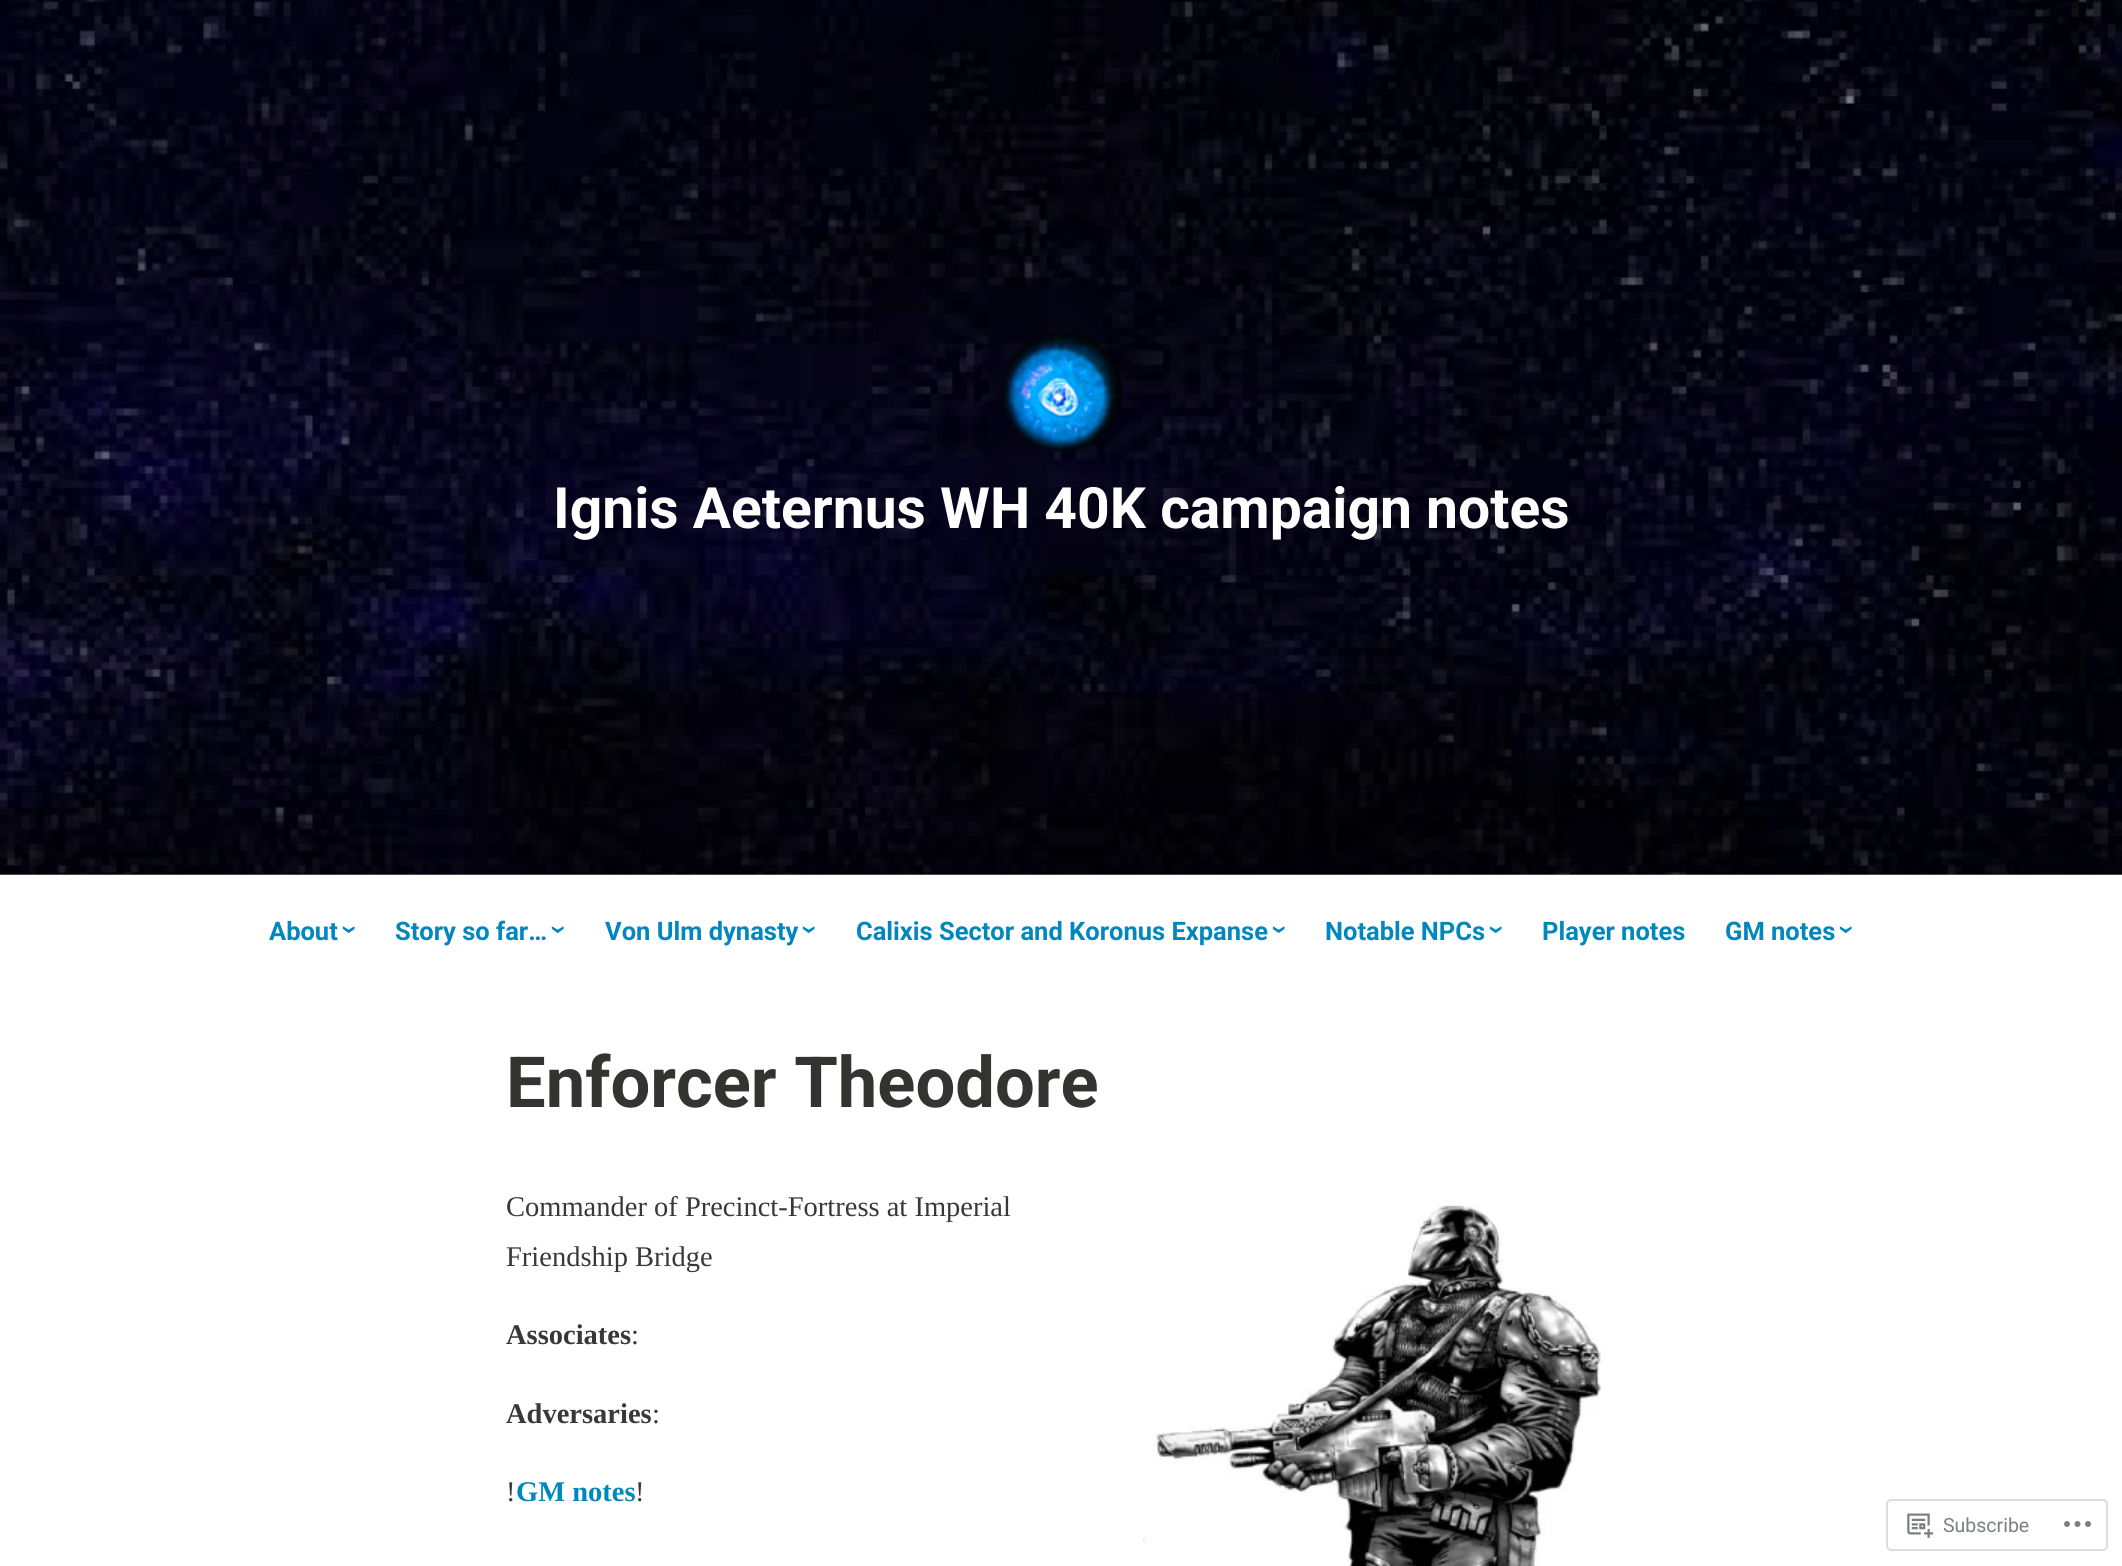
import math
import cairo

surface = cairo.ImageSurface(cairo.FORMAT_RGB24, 2122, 1566)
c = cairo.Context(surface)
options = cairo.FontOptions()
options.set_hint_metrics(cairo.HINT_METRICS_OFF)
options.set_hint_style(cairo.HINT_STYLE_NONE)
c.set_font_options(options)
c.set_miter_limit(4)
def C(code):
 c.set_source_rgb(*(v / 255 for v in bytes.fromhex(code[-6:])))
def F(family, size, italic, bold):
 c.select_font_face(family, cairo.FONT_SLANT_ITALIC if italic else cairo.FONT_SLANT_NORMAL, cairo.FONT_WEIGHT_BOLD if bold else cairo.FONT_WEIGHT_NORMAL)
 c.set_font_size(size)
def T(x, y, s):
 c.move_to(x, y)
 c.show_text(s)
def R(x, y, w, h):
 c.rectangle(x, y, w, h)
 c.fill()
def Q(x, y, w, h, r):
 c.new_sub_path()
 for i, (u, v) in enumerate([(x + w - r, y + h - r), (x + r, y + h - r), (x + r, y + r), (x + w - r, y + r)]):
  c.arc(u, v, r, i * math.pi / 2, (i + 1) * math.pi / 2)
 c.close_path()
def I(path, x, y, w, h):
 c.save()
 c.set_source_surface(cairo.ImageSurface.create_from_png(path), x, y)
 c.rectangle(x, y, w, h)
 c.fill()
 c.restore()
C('ffffff')
c.paint()
I('1.png',0,0,2122,875)
gradient = cairo.LinearGradient(1061,0,1061,875)
gradient.add_color_stop_rgba(.5,0,0,0,.15)
gradient.add_color_stop_rgba(1,0,0,0,.45)
c.set_source(gradient)
R(0,0,2122,875)
I('2.png',1002,332,120,120)
F('Roboto',57,0,1)
C('ffffff')
T(553,528,'Ignis Aeternus WH 40K campaign notes')
F('Roboto',25.5,0,1)
C('0087be')
T(269,940,'About')
F('Roboto',30,0,1)
c.save()
c.translate(341,925)
c.rotate(90 * math.pi / 180)
T(0,0,'›')
c.restore()
F('Roboto',25.5,0,1)
T(395,940,'Story so far…')
F('Roboto',30,0,1)
c.save()
c.translate(550,925)
c.rotate(90 * math.pi / 180)
T(0,0,'›')
c.restore()
F('Roboto',25.5,0,1)
T(605,940,'Von Ulm dynasty')
F('Roboto',30,0,1)
c.save()
c.translate(801,925)
c.rotate(90 * math.pi / 180)
T(0,0,'›')
c.restore()
F('Roboto',25.5,0,1)
T(856,940,'Calixis Sector and Koronus Expanse')
F('Roboto',30,0,1)
c.save()
c.translate(1271,925)
c.rotate(90 * math.pi / 180)
T(0,0,'›')
c.restore()
F('Roboto',25.5,0,1)
T(1325,940,'Notable NPCs')
F('Roboto',30,0,1)
c.save()
c.translate(1488,925)
c.rotate(90 * math.pi / 180)
T(0,0,'›')
c.restore()
F('Roboto',25.5,0,1)
T(1542,940,'Player notes')
T(1725,940,'GM notes')
F('Roboto',30,0,1)
c.save()
c.translate(1838,925)
c.rotate(90 * math.pi / 180)
T(0,0,'›')
c.restore()
F('Roboto',70.5,0,1)
C('333332')
T(506,1107,'Enforcer Theodore')
F('Liberation Serif',28.5,0,0)
C('383838')
T(506,1216,'Commander of Precinct-Fortress at Imperial')
T(506,1266,'Friendship Bridge')
I('3.png',1143,1205,458,361)
F('Liberation Serif',28.5,0,1)
T(506,1344,'Associates')
F('Liberation Serif',28.5,0,0)
T(631,1344,':')
F('Liberation Serif',28.5,0,1)
T(506,1423,'Adversaries')
F('Liberation Serif',28.5,0,0)
T(652,1423,':')
T(506,1501,'!')
F('Liberation Serif',28.5,0,1)
C('0087be')
T(516,1501,'GM notes')
F('Liberation Serif',28.5,0,0)
C('383838')
T(635,1501,'!')
Q(1887,1500,220,50,4)
C('dddddf')
c.stroke()
I('4.png',1907,1513,27,25)
F('Roboto',19.5,0,0)
C('7b7f85')
T(1943,1532,'Subscribe')
I('5.png',2064,1521,27,6)
surface.write_to_png('o.png')
